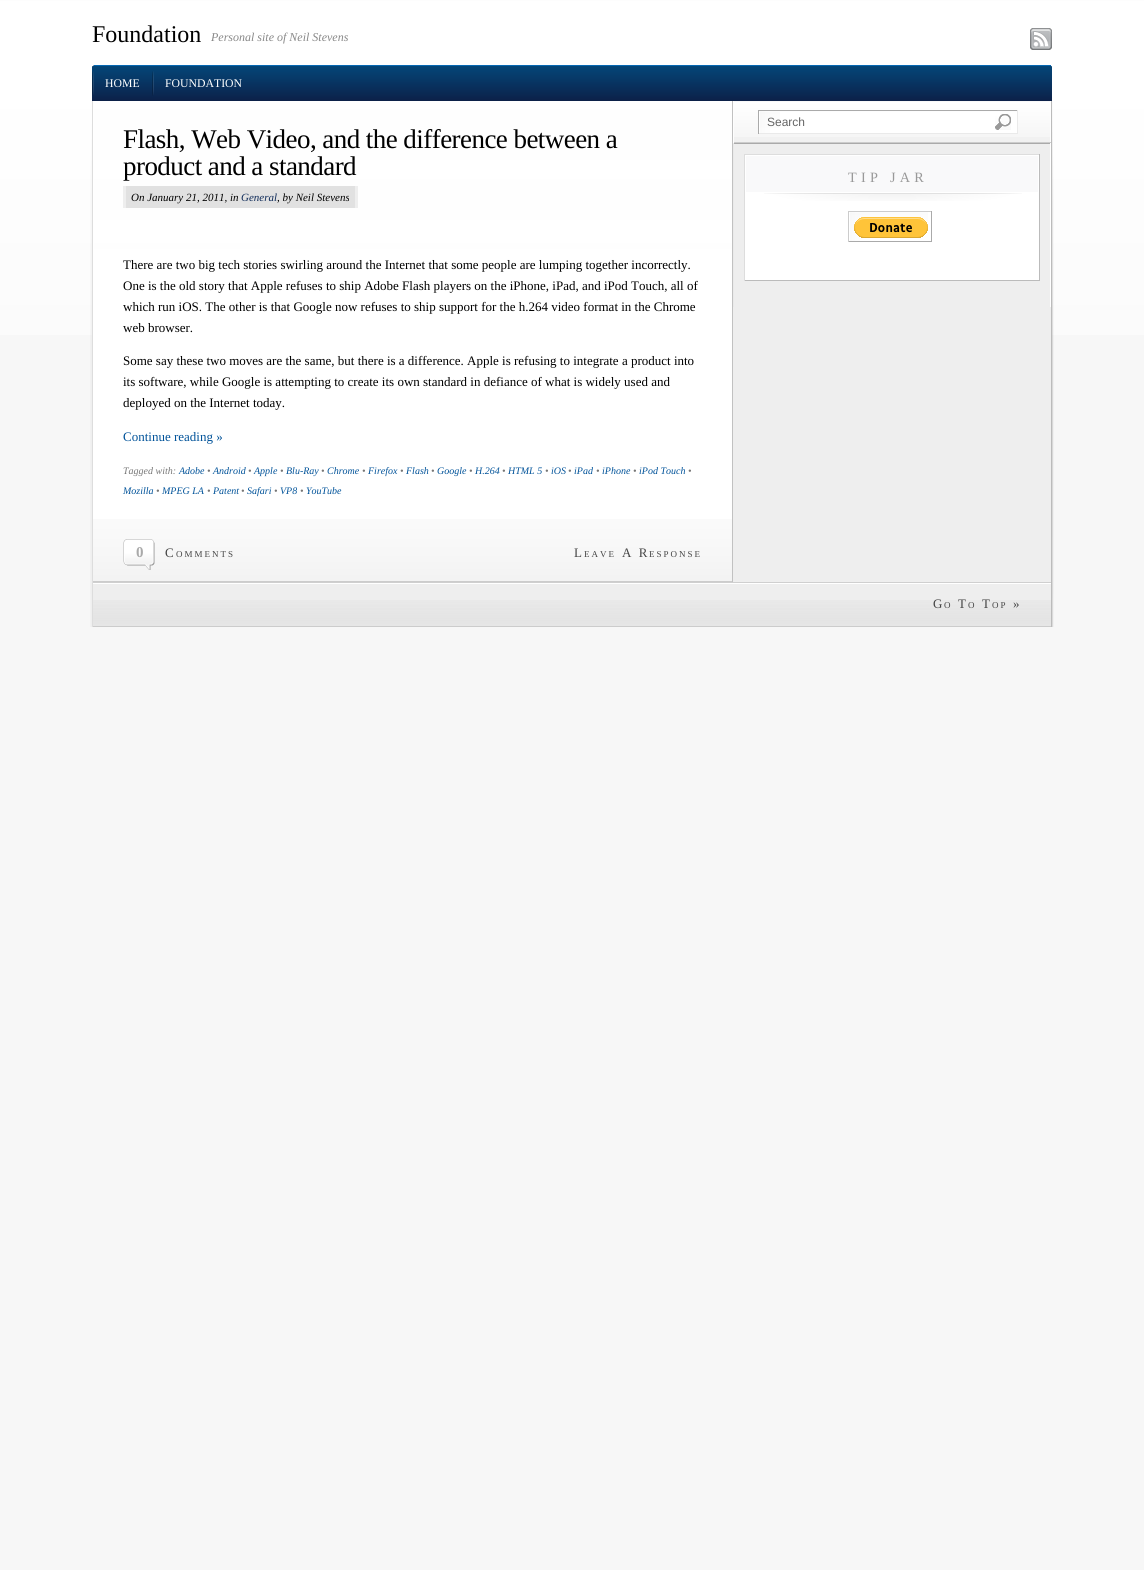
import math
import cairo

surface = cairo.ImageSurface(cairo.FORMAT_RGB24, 1144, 1570)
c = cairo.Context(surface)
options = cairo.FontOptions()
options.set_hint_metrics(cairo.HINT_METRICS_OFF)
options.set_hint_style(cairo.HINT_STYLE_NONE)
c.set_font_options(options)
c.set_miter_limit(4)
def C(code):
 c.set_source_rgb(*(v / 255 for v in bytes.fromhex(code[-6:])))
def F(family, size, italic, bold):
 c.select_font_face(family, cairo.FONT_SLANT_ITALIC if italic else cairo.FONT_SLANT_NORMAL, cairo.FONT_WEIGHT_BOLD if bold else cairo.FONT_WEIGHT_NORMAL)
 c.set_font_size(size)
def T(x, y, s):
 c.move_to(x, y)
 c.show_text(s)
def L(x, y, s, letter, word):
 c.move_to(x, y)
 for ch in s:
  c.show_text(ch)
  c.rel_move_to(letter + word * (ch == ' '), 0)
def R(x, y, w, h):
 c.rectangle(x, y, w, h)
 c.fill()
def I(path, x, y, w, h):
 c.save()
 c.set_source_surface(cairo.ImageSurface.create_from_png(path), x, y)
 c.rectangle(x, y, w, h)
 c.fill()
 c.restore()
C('f7f7f7')
c.paint()
I('1.png',0,0,1144,335)
F('Liberation Serif',24,0,0)
C('000000')
T(92,42,'Foundation')
F('Liberation Serif',12,1,0)
C('888888')
T(211,41,'Personal site of Neil Stevens')
I('2.png',1030,28,22,22)
I('3.png',90,97,964,530)
C('072a5a')
c.new_path()
c.move_to(95,65)
c.line_to(1049,65)
c.curve_to(1050.5,65,1052,66.5,1052,68)
c.line_to(1052,101)
c.line_to(92,101)
c.line_to(92,68)
c.curve_to(92,66.5,93.5,65,95,65)
c.close_path()
c.fill()
I('4.png',92,66,960,35)
C('0668b3')
R(94,65,957,1)
I('5.png',92,71,2,25)
F('Liberation Serif',11.75,0,0)
C('ffffff')
T(105,87,'HOME')
I('5.png',152,71,2,25)
T(165,87,'FOUNDATION')
C('eeeeee')
R(733,144,318,438)
C('bbbbbb')
R(1051,101,1,526)
C('dddddd')
R(92,101,1,526)
C('ffffff')
R(93,101,1,418)
C('c1c1c1')
R(732,101,1,481)
I('6.png',93,519,639,62)
F('Liberation Serif',27,0,0)
C('000000')
L(123,148,'Flash, Web Video, and the difference between a',-.55,0)
L(123,175,'product and a standard',-.55,0)
C('e1e1e1')
R(126,186,229,22)
F('Liberation Serif',11,1,0)
C('000000')
T(131,201,'On January 21, 2011, in')
C('eeeeee')
R(123,186,3,22)
C('0f2b59')
T(241,201,'General')
C('000000')
T(277,201,', by Neil Stevens')
C('eeeeee')
R(355,186,3,22)
F('Liberation Serif',13,0,0)
C('000000')
T(123,269,'There are two big tech stories swirling around the Internet that some people are lumping together incorrectly.')
T(123,290,'One is the old story that Apple refuses to ship Adobe Flash players on the iPhone, iPad, and iPod Touch, all of')
T(123,311,'which run iOS. The other is that Google now refuses to ship support for the h.264 video format in the Chrome')
T(123,332,'web browser.')
T(123,365,'Some say these two moves are the same, but there is a difference. Apple is refusing to integrate a product into')
T(123,386,'its software, while Google is attempting to create its own standard in defiance of what is widely used and')
T(123,407,'deployed on the Internet today.')
C('005299')
T(123,441,'Continue reading »')
F('Liberation Serif',10,1,0)
C('777777')
T(123,474,'Tagged with:')
C('005299')
T(179,474,'Adobe')
C('777777')
T(207,474,'•')
C('005299')
T(213,474,'Android')
C('777777')
T(248,474,'•')
C('005299')
T(254,474,'Apple')
C('777777')
T(280,474,'•')
C('005299')
T(286,474,'Blu-Ray')
C('777777')
T(321,474,'•')
C('005299')
T(327,474,'Chrome')
C('777777')
T(362,474,'•')
C('005299')
T(368,474,'Firefox')
C('777777')
T(400,474,'•')
C('005299')
T(406,474,'Flash')
C('777777')
T(431,474,'•')
C('005299')
T(437,474,'Google')
C('777777')
T(469,474,'•')
C('005299')
T(475,474,'H.264')
C('777777')
T(502,474,'•')
C('005299')
T(508,474,'HTML 5')
C('777777')
T(545,474,'•')
C('005299')
T(551,474,'iOS')
C('777777')
T(568,474,'•')
C('005299')
T(574,474,'iPad')
C('777777')
T(596,474,'•')
C('005299')
T(602,474,'iPhone')
C('777777')
T(633,474,'•')
C('005299')
T(639,474,'iPod Touch')
C('777777')
T(688,474,'•')
C('005299')
T(123,494,'Mozilla')
C('777777')
T(156,494,'•')
C('005299')
T(162,494,'MPEG LA')
C('777777')
T(207,494,'•')
C('005299')
T(213,494,'Patent')
C('777777')
T(241,494,'•')
C('005299')
T(247,494,'Safari')
C('777777')
T(274,494,'•')
C('005299')
T(280,494,'VP8')
C('777777')
T(300,494,'•')
C('005299')
T(306,494,'YouTube')
C('cccccc')
R(93,581,639,1)
I('7.png',123,539,32,31)
F('Liberation Serif',15,0,1)
C('aaaaaa')
T(136,557,'0')
F('Liberation Serif',13,0,0)
C('444444')
L(165,557,'C',2,0)
F('Liberation Serif',9,0,0)
L(176,557,'OMMENTS',2,0)
F('Liberation Serif',13,0,0)
L(574,557,'L',2,0)
F('Liberation Serif',9,0,0)
L(584,557,'EAVE',2,0)
F('Liberation Serif',13,0,0)
L(622,557,'A R',2,0)
F('Liberation Serif',9,0,0)
L(649,557,'ESPONSE',2,0)
C('f1f1f1')
R(734,101,316,41)
I('8.png',734,101,316,36)
C('cccccc')
R(733,142,318,1)
C('ffffff')
R(733,142,1,1)
R(759,112,258,21)
I('9.png',760,111,20,22)
C('aaaaaa')
R(758,110,260,1)
C('eaeaea')
R(1017,110,1,24)
R(758,133,260,1)
C('aaaaaa')
R(758,110,1,24)
F('Liberation Sans',12,0,0)
C('666666')
T(767,126,'Search')
I('10.png',995,114,16,16)
I('11.png',995,114,16,16)
C('aaaaaa')
R(733,143,318,1)
C('ffffff')
R(1050,143,1,164)
C('eaeaea')
R(733,143,1,164)
C('ffffff')
R(746,192,292,87)
C('dddddd')
R(744,154,296,1)
C('bbbbbb')
R(1039,154,1,127)
R(744,280,296,1)
C('dddddd')
R(744,154,1,127)
C('f9f9fa')
R(746,156,292,36)
c.rectangle(745.5,155.5,293,124)
C('ffffff')
c.set_line_width(1)
c.stroke()
I('12.png',764,193,258,8)
F('Liberation Serif',14.25,0,0)
C('999999')
L(848,182,'TIP JAR',4.25,0)
I('13.png',850,212,78,29)
C('cccccc')
R(848,211,84,1)
C('aaaaaa')
R(931,211,1,31)
R(848,241,84,1)
C('cccccc')
R(848,211,1,31)
I('14.png',93,582,958,2)
C('eeeeee')
R(93,584,958,16)
I('15.png',93,600,958,26)
C('cccccc')
R(93,626,958,1)
F('Liberation Serif',13,0,0)
C('444444')
L(933,608,'G',2,0)
F('Liberation Serif',9,0,0)
L(944,608,'O',2,0)
F('Liberation Serif',13,0,0)
L(958,608,'T',2,0)
F('Liberation Serif',9,0,0)
L(968,608,'O',2,0)
F('Liberation Serif',13,0,0)
L(982,608,'T',2,0)
F('Liberation Serif',9,0,0)
L(992,608,'OP',2,0)
F('Liberation Serif',13,0,0)
L(1013,608,'»',2,0)
surface.write_to_png('o.png')
